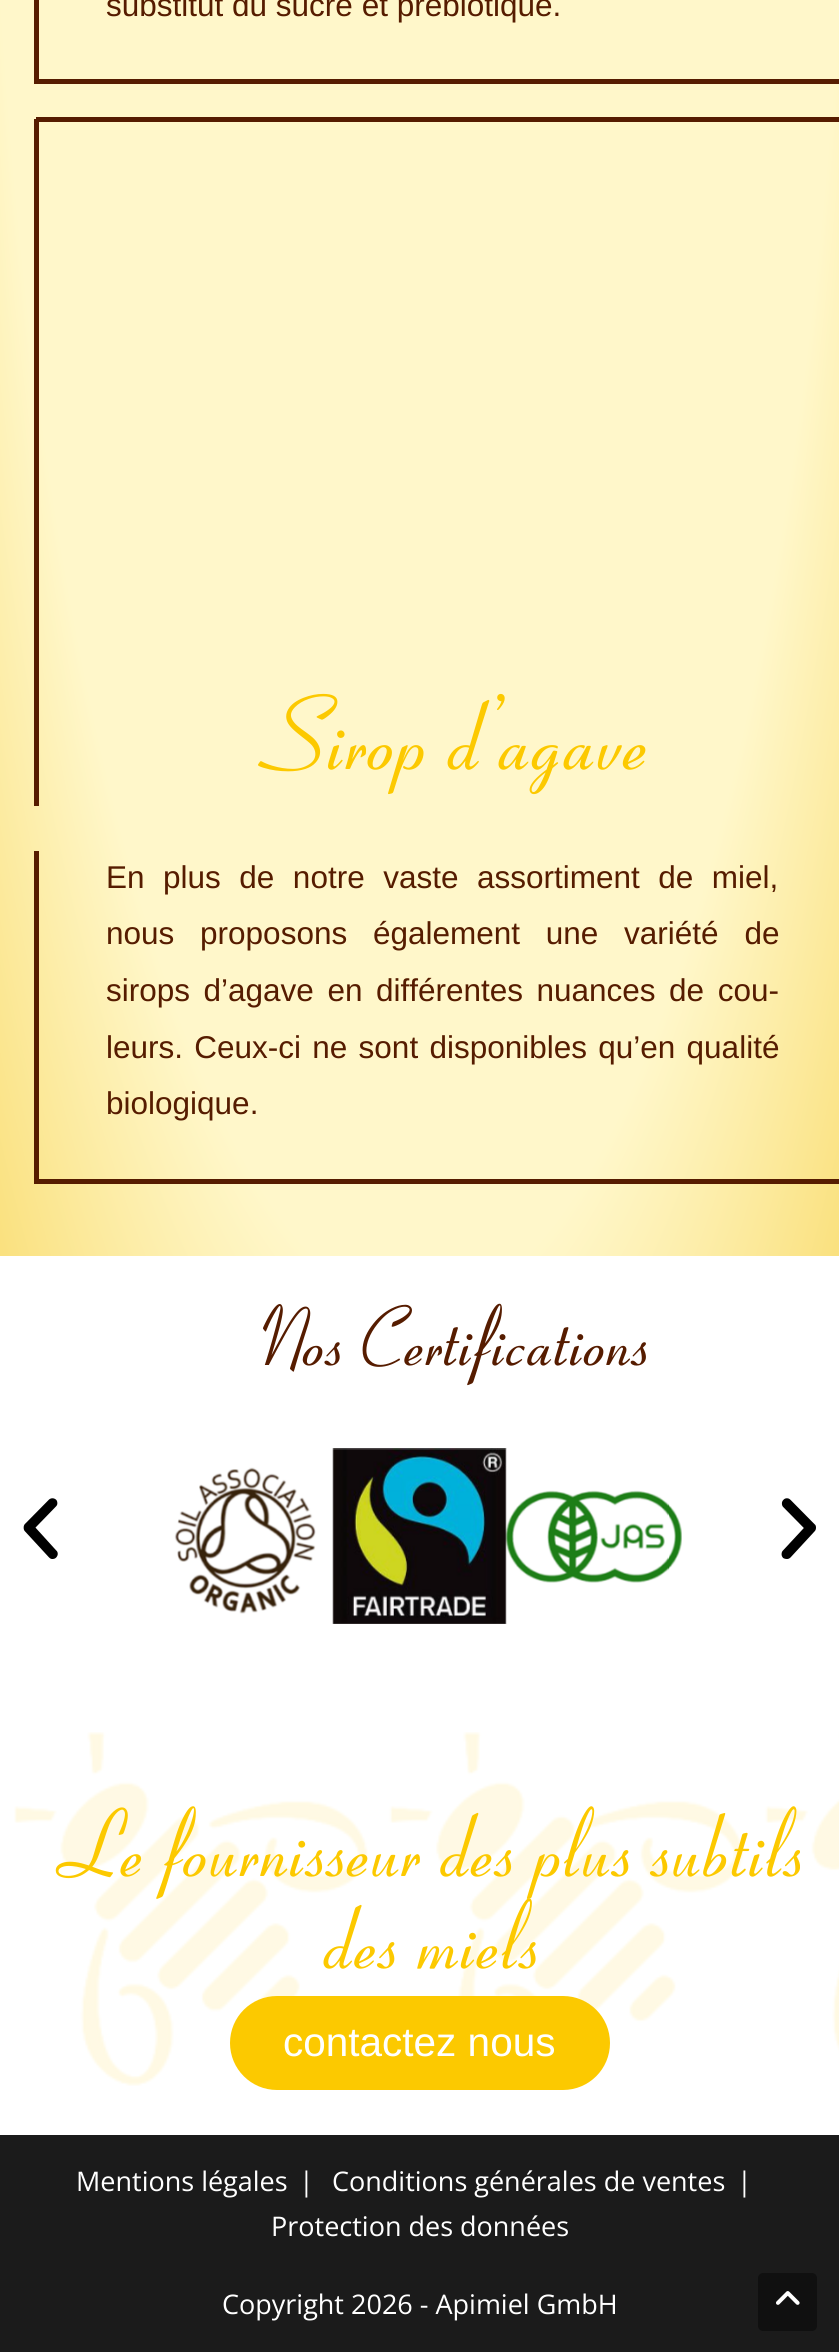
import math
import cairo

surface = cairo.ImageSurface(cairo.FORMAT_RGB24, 839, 2352)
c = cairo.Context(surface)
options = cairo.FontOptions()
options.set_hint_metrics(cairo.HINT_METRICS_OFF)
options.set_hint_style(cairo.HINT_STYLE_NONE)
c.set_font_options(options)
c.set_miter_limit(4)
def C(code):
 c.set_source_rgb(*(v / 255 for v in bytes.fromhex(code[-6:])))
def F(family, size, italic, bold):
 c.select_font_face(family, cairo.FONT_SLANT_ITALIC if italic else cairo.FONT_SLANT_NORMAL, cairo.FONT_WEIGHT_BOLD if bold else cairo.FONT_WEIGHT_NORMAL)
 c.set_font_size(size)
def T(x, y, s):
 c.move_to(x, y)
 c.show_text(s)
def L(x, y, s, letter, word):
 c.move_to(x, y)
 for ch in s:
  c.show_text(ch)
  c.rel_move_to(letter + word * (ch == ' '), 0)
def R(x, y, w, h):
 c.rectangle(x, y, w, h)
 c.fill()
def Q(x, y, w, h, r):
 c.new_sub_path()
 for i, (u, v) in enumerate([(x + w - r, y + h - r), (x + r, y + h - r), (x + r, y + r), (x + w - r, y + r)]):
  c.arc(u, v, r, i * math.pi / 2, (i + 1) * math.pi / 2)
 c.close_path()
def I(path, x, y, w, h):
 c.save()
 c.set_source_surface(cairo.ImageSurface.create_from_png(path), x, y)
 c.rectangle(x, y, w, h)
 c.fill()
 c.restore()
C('ffffff')
c.paint()
gradient = cairo.RadialGradient(0,0,0,0,0,1)
gradient.set_matrix(cairo.Matrix(1 / 593, 0, 0, 1 / 2348, -1 * 420 / 593, -1 * -405 / 2348))
gradient.add_color_stop_rgba(.73,1,0.969,0.792,1)
gradient.add_color_stop_rgba(1,0.98,0.882,0.498,1)
c.set_source(gradient)
R(0,0,839,1256)
C('561c00')
R(34,79,805,5)
R(34,0,5,83)
F('Liberation Sans',31.5,0,0)
T(106,16,'substitut du sucre et prébiotique.')
R(36,117,803,5)
R(34,119,5,687)
F('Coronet',101,0,0)
C('fcc900')
T(247,769,'Sirop d’agave')
C('561c00')
R(34,1179,805,5)
R(34,851,5,333)
F('Liberation Sans',31.5,0,0)
L(106,888,'En plus de notre vaste assortiment de miel,',0,9.75)
L(106,944,'nous proposons également une variété de',0,17)
L(106,1001,'sirops d’agave en différentes nuances de cou-',0,4.75)
L(106,1058,'leurs. Ceux-ci ne sont disponibles qu’en qualité',0,2.5)
T(106,1114,'biologique.')
F('Coronet',81,0,0)
T(245,1365,'Nos Certifications')
I('1.png',23,1498,35,61)
I('2.png',174,1467,142,147)
I('3.png',332,1448,175,176)
I('4.png',505,1448,177,176)
I('5.png',781,1498,35,61)
I('6.png',14,1732,825,354)
F('Coronet',92.25,0,0)
C('fcc900')
T(46,1876,'Le fournisseur des plus subtils')
T(312,1968,'des miels')
Q(230,1996,380,94,47)
c.fill()
F('Liberation Sans',40.5,0,0)
C('ffffff')
T(283,2056,'contactez nous')
C('1b1b1b')
R(0,2135,839,217)
F('Open Sans',27,0,0)
C('ffffff')
T(76,2191,'Mentions légales')
T(299,2191,'|')
T(332,2191,'Conditions générales de ventes')
T(737,2191,'|')
T(271,2236,'Protection des données')
T(222,2314,'Copyright 2026 - Apimiel GmbH')
C('101010')
Q(758,2273,59,58,5)
c.fill()
I('7.png',776,2291,24,14)
surface.write_to_png('o.png')
